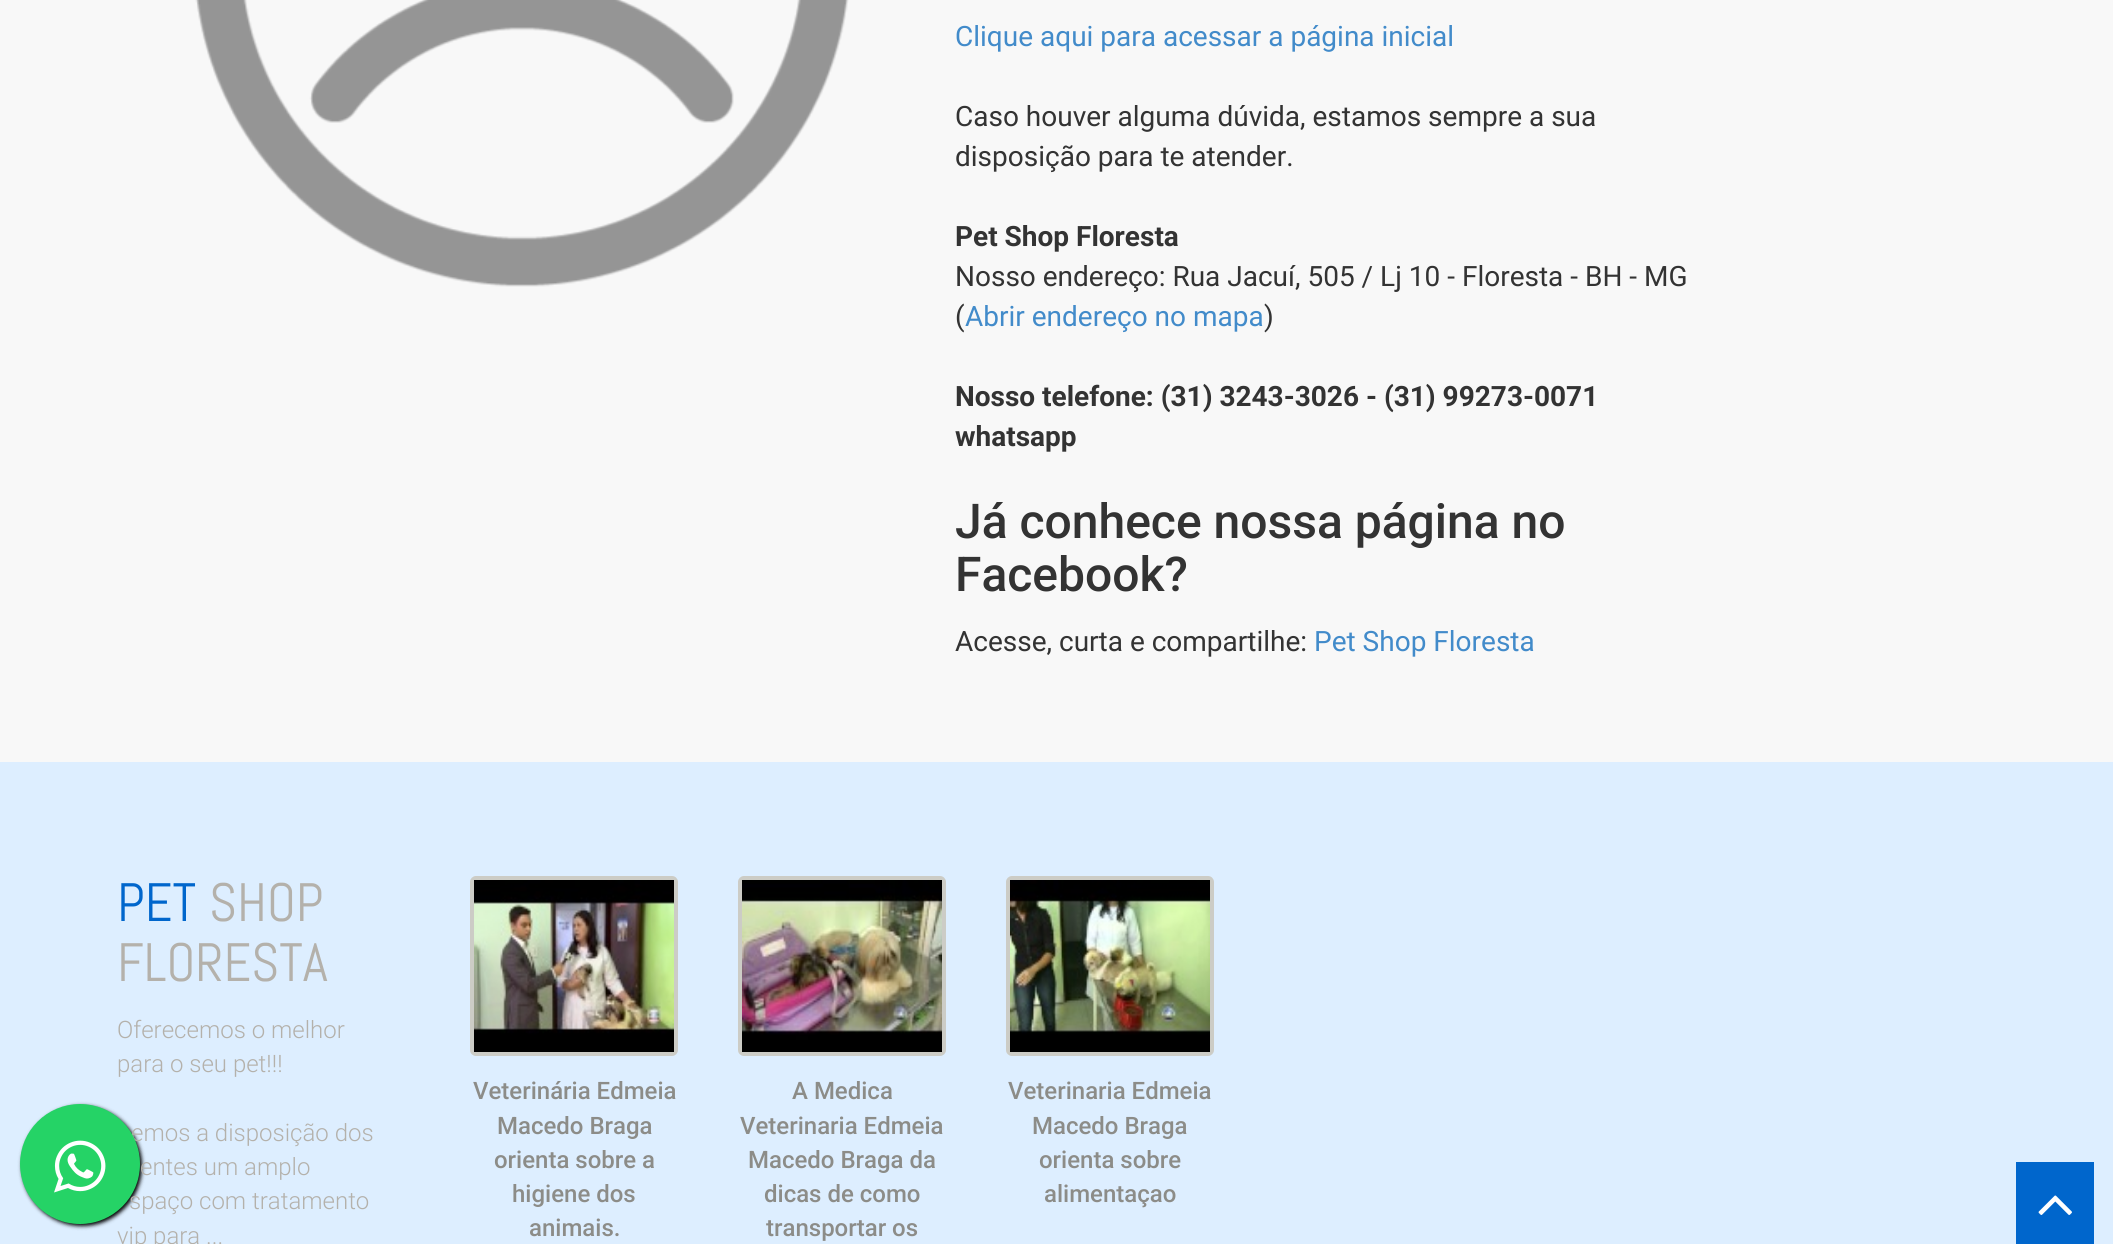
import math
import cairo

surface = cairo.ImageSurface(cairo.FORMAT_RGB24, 2113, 1244)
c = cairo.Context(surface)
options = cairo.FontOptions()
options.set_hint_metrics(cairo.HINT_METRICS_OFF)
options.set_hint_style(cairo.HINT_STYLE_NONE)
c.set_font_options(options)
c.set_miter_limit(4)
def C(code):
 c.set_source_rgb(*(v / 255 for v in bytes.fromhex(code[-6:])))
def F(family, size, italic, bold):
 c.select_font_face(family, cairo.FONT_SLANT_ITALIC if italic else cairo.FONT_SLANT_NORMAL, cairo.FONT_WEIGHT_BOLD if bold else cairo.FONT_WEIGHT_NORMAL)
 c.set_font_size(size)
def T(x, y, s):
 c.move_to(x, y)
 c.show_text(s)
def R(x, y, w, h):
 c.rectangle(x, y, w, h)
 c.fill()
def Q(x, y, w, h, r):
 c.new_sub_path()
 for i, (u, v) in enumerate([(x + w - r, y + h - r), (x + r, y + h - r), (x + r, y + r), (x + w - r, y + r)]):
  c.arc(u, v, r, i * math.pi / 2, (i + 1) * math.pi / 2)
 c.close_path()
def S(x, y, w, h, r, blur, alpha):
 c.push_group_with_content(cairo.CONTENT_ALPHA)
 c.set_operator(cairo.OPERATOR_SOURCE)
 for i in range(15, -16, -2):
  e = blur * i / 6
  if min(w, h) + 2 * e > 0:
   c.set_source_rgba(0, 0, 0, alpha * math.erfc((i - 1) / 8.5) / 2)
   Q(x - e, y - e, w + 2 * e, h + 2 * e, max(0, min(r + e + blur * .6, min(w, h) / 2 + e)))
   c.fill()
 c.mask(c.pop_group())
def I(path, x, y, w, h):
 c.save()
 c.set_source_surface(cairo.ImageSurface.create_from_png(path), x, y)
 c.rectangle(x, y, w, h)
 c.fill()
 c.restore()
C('f8f8f8')
c.paint()
I('1.png',195,0,654,287)
F('Roboto',28,0,0)
C('428bca')
T(955,46,'Clique aqui para acessar a página inicial')
C('333333')
T(955,126,'Caso houver alguma dúvida, estamos sempre a sua')
T(955,166,'disposição para te atender.')
F('Roboto',28,0,1)
T(955,246,'Pet Shop Floresta')
F('Roboto',28,0,0)
T(955,286,'Nosso endereço: Rua Jacuí, 505 / Lj 10 - Floresta - BH - MG')
T(955,326,'(')
C('428bca')
T(965,326,'Abrir endereço no mapa')
C('333333')
T(1264,326,')')
F('Roboto',28,0,1)
T(955,406,'Nosso telefone: (31) 3243-3026 - (31) 99273-0071')
T(955,446,'whatsapp')
F('Roboto Medium',48,0,0)
T(955,538,'Já conhece nossa página no')
T(955,591,'Facebook?')
F('Roboto',28,0,0)
T(955,651,'Acesse, curta e compartilhe:')
C('428bca')
T(1314,651,'Pet Shop Floresta')
C('ddeeff')
R(0,762,2113,482)
C('000000')
S(22,1106,120,120,60,2,1)
F('Roboto Light',24,0,0)
C('b4b1ab')
T(131,1141,'emos a disposição dos')
T(129,1209,'spaço com tratamento')
C('25d366')
c.new_path()
c.arc(80,1164,60,0,2 * math.pi)
c.fill()
I('2.png',54,1140,52,53)
F('Abel',54,0,0)
C('0066cc')
T(117,921,'PET')
C('b4b1ab')
T(209,921,'SHOP')
T(117,981,'FLORESTA')
F('Roboto Light',24,0,0)
T(117,1038,'Oferecemos o melhor')
T(117,1072,'para o seu pet!!!')
T(140,1175,'entes um amplo')
T(117,1244,'vip para ...')
Q(472,878,204,176,4)
C('ccccc6')
c.set_line_width(4)
c.stroke()
I('3.png',474,880,200,172)
F('Roboto Medium',24,0,0)
C('8c8c88')
T(473,1099,'Veterinária Edmeia')
T(497,1134,'Macedo Braga')
T(494,1168,'orienta sobre a')
T(512,1202,'higiene dos')
T(529,1236,'animais.')
Q(740,878,204,176,4)
C('ccccc6')
c.stroke()
I('4.png',742,880,200,172)
C('8c8c88')
T(792,1099,'A Medica')
T(740,1134,'Veterinaria Edmeia')
T(748,1168,'Macedo Braga da')
T(764,1202,'dicas de como')
T(766,1236,'transportar os')
Q(1008,878,204,176,4)
C('ccccc6')
c.stroke()
I('5.png',1010,880,200,172)
C('8c8c88')
T(1008,1099,'Veterinaria Edmeia')
T(1032,1134,'Macedo Braga')
T(1039,1168,'orienta sobre')
T(1044,1202,'alimentaçao')
C('0066cc')
R(2016,1162,78,82)
I('6.png',2038,1195,34,20)
surface.write_to_png('o.png')
